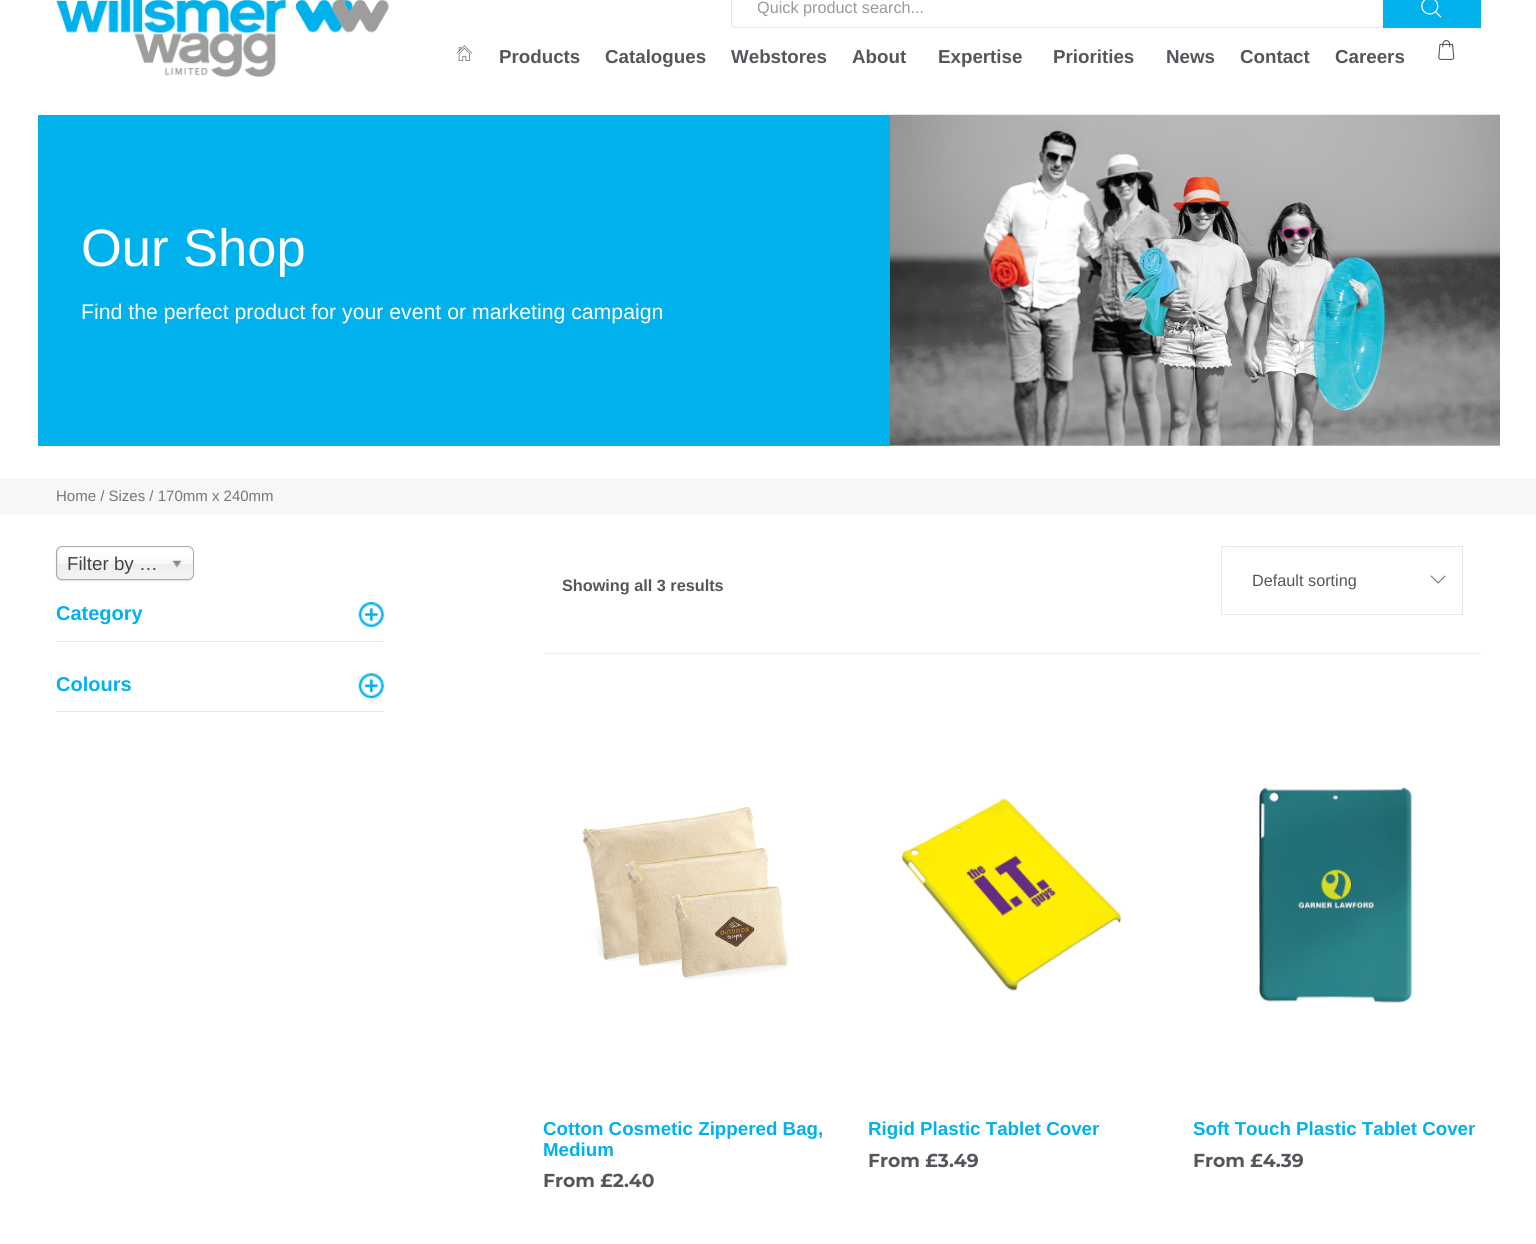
import math
import cairo

surface = cairo.ImageSurface(cairo.FORMAT_RGB24, 1536, 1244)
c = cairo.Context(surface)
options = cairo.FontOptions()
options.set_hint_metrics(cairo.HINT_METRICS_OFF)
options.set_hint_style(cairo.HINT_STYLE_NONE)
c.set_font_options(options)
c.set_miter_limit(4)
def C(code):
 c.set_source_rgb(*(v / 255 for v in bytes.fromhex(code[-6:])))
def F(family, size, italic, bold):
 c.select_font_face(family, cairo.FONT_SLANT_ITALIC if italic else cairo.FONT_SLANT_NORMAL, cairo.FONT_WEIGHT_BOLD if bold else cairo.FONT_WEIGHT_NORMAL)
 c.set_font_size(size)
def T(x, y, s):
 c.move_to(x, y)
 c.show_text(s)
def R(x, y, w, h):
 c.rectangle(x, y, w, h)
 c.fill()
def Q(x, y, w, h, r):
 c.new_sub_path()
 for i, (u, v) in enumerate([(x + w - r, y + h - r), (x + r, y + h - r), (x + r, y + r), (x + w - r, y + r)]):
  c.arc(u, v, r, i * math.pi / 2, (i + 1) * math.pi / 2)
 c.close_path()
def S(x, y, w, h, r, blur, alpha):
 c.push_group_with_content(cairo.CONTENT_ALPHA)
 c.set_operator(cairo.OPERATOR_SOURCE)
 for i in range(15, -16, -2):
  e = blur * i / 6
  if min(w, h) + 2 * e > 0:
   c.set_source_rgba(0, 0, 0, alpha * math.erfc((i - 1) / 8.5) / 2)
   Q(x - e, y - e, w + 2 * e, h + 2 * e, max(0, min(r + e + blur * .6, min(w, h) / 2 + e)))
   c.fill()
 c.mask(c.pop_group())
def I(path, x, y, w, h):
 c.save()
 c.set_source_surface(cairo.ImageSurface.create_from_png(path), x, y)
 c.rectangle(x, y, w, h)
 c.fill()
 c.restore()
C('ffffff')
c.paint()
I('1.png',56,0,333,77)
C('fafafa')
c.new_path()
c.move_to(735,-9)
c.line_to(1380,-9)
c.curve_to(1381,-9,1382,-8,1382,-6)
c.line_to(1382,26)
c.curve_to(1384,24,1383,6,1383,2)
c.line_to(1383,-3)
c.curve_to(1383,-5,1384,-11,1380,-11)
c.line_to(736,-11)
c.curve_to(734,-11,733,-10,733,-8)
c.close_path()
c.fill()
Q(731.5,-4.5,652,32,3.5)
C('e6e6e6')
c.set_line_width(1)
c.stroke()
c.save()
c.rectangle(758,0,595,18)
c.clip()
F('Liberation Sans',16.25,0,0)
C('999999')
T(757,13,'Quick product search...')
c.restore()
C('00b1eb')
R(1383,0,98,28)
I('2.png',1421,0,21,18)
I('3.png',456,45,17,16)
F('Liberation Sans',18.75,0,1)
C('53565a')
T(499,63,'Products')
T(605,63,'Catalogues')
T(731,63,'Webstores')
T(852,63,'About')
T(938,63,'Expertise')
T(1053,63,'Priorities')
T(1166,63,'News')
T(1240,63,'Contact')
T(1335,63,'Careers')
I('4.png',1438,40,17,20)
C('00b1eb')
R(38,115,852,331)
F('Liberation Sans',52.5,0,0)
C('ffffff')
T(81,266,'Our Shop')
F('Liberation Sans',21.25,0,0)
T(81,319,'Find the perfect product for your event or marketing campaign')
I('5.png',890,114,610,332)
C('f7f7f7')
R(0,478,1536,37)
F('Liberation Sans',15,0,0)
C('767676')
T(56,501,'Home / Sizes / 170mm x 240mm')
C('000000')
S(56,548,138,33,6,.5,.1)
gradient = cairo.LinearGradient(125,548,125,579)
gradient.add_color_stop_rgba(.2,1,1,1,1)
gradient.add_color_stop_rgba(.5,0.965,0.965,0.965,1)
gradient.add_color_stop_rgba(.52,0.933,0.933,0.933,1)
gradient.add_color_stop_rgba(1,0.957,0.957,0.957,1)
c.set_source(gradient)
Q(58,548,135,31,5)
c.fill()
Q(56.5,546.5,137,33,5.5)
C('aaaaaa')
c.stroke()
F('Liberation Sans',18.75,0,0)
C('444444')
T(67,570,'Filter by …')
I('6.png',172,560,10,8)
C('e9e7e7')
R(56,641,328,1)
F('Liberation Sans',20,0,1)
C('00b1eb')
T(56,620,'Category')
I('7.png',358,602,26,25)
C('e9e7e7')
R(56,711,328,1)
C('00b1eb')
T(56,691,'Colours')
I('8.png',358,673,26,26)
C('eeeeee')
R(544,653,937,1)
F('Liberation Sans',16.25,0,1)
C('53565a')
T(562,591,'Showing all 3 results')
c.rectangle(1221.5,546.5,241,68)
C('e7e7e7')
c.stroke()
C('fafafa')
c.new_path()
c.move_to(1226,550)
c.line_to(1458,550)
c.curve_to(1460,550,1461,552,1461,554)
c.line_to(1461,552)
c.curve_to(1461,550,1459,548,1457,548)
c.line_to(1227,548)
c.curve_to(1225,548,1223,550,1223,551)
c.close_path()
c.fill()
F('Liberation Sans',16.25,0,0)
C('53565a')
T(1252,586,'Default sorting')
I('9.png',1430,575,16,9)
I('10.png',581,807,207,173)
F('Liberation Sans',18.75,0,1)
C('00b1eb')
T(543,1135,'Cotton Cosmetic Zippered Bag,')
T(543,1156,'Medium')
F('Montserrat',18.75,0,1)
C('53565a')
T(543,1187,'From £2.40')
I('11.png',901,798,220,193)
F('Liberation Sans',18.75,0,1)
C('00b1eb')
T(868,1135,'Rigid Plastic Tablet Cover')
F('Montserrat',18.75,0,1)
C('53565a')
T(868,1167,'From £3.49')
I('12.png',1259,787,153,216)
F('Liberation Sans',18.75,0,1)
C('00b1eb')
T(1193,1135,'Soft Touch Plastic Tablet Cover')
F('Montserrat',18.75,0,1)
C('53565a')
T(1193,1167,'From £4.39')
surface.write_to_png('o.png')
